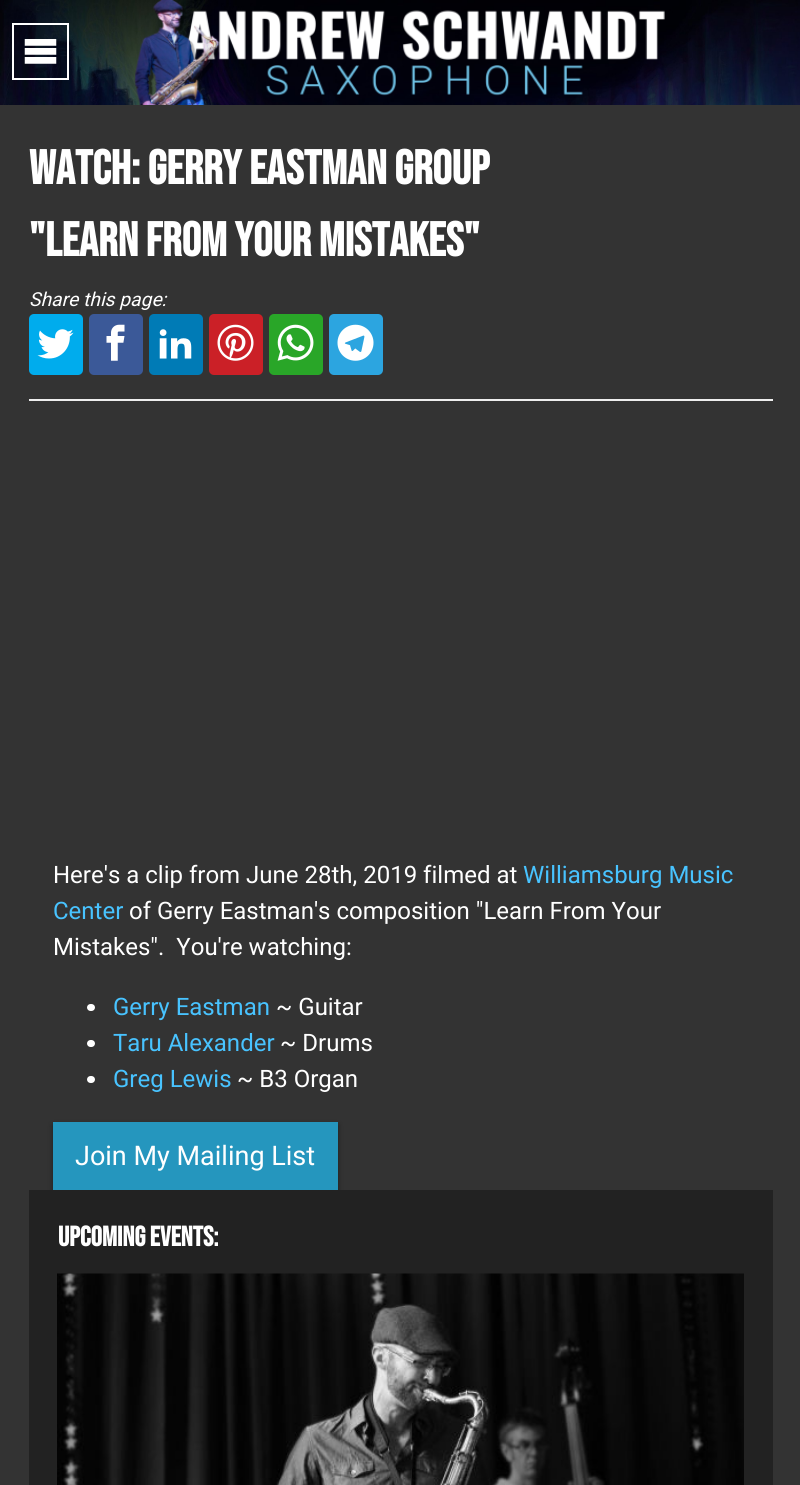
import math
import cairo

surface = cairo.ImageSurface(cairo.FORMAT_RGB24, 800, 1485)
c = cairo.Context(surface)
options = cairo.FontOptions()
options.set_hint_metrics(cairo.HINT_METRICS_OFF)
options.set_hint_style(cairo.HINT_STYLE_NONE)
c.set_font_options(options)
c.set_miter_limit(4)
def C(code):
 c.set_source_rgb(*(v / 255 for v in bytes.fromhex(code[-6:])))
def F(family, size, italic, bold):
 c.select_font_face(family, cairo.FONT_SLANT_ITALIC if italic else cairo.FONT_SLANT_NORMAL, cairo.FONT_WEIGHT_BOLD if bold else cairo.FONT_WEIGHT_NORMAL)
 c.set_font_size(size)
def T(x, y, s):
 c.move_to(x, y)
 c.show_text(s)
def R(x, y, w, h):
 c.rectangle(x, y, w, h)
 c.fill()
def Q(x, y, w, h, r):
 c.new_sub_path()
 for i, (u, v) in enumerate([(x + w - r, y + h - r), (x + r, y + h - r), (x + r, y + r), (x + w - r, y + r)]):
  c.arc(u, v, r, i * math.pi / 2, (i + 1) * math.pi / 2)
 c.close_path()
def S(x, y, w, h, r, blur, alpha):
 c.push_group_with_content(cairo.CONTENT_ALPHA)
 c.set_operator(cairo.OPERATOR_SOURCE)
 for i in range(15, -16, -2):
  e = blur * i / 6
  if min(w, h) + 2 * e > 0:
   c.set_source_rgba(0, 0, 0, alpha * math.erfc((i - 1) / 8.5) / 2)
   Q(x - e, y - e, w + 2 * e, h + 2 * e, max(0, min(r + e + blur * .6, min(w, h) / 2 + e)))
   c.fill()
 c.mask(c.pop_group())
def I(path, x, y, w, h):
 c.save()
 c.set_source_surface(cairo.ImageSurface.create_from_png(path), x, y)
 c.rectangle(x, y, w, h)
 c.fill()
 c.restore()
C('333333')
c.paint()
I('1.png',0,0,800,105)
c.rectangle(13,24,55,55)
C('ffffff')
c.stroke()
I('2.png',24,39,33,25)
I('3.png',134,0,531,105)
C('eeeeee')
R(29,399,744,2)
F('Bebas Neue',48,0,1)
C('ffffff')
T(29,184,'Watch: Gerry Eastman Group')
T(29,256,'"Learn From Your Mistakes"')
F('Roboto',19.25,1,0)
T(29,306,'Share this page:')
C('00aced')
Q(29,314,54,61,5)
c.fill()
I('4.png',37,329,37,30)
C('3b5998')
Q(89,314,54,61,5)
c.fill()
I('5.png',106,324,19,37)
C('007bb6')
Q(149,314,54,61,5)
c.fill()
I('6.png',159,329,33,30)
C('cb2027')
Q(209,314,54,61,5)
c.fill()
I('7.png',217,324,37,37)
C('29a628')
Q(269,314,54,61,5)
c.fill()
I('8.png',277,324,37,37)
C('2ca5e0')
Q(329,314,54,61,5)
c.fill()
I('9.png',337,324,37,37)
F('Roboto',24,0,0)
C('ffffff')
T(53,883,'Here\'s a clip from June 28th, 2019 filmed at')
C('48c3ff')
T(523,883,'Williamsburg Music')
T(53,919,'Center')
C('ffffff')
T(129,919,'of Gerry Eastman\'s composition "Learn From Your')
T(53,955,'Mistakes".  You\'re watching:')
Q(87,1004,8,7,3.5)
c.fill()
C('48c3ff')
T(113,1015,'Gerry Eastman')
C('ffffff')
T(276,1015,'~ Guitar')
Q(87,1040,8,7,3.5)
c.fill()
C('48c3ff')
T(113,1051,'Taru Alexander')
C('ffffff')
T(280,1051,'~ Drums')
Q(87,1076,8,7,3.5)
c.fill()
C('48c3ff')
T(113,1087,'Greg Lewis')
C('ffffff')
T(237,1087,'~ B3 Organ')
C('000000')
S(53,1125,285,68,0,3,.4)
C('2596be')
R(53,1122,285,68)
F('Roboto',27,0,0)
C('ffffff')
T(75,1165,'Join My Mailing List')
C('222222')
R(29,1190,744,295)
F('Bebas Neue',28,0,1)
C('ffffff')
T(58,1246,'Upcoming Events:')
I('10.png',57,1273,687,212)
surface.write_to_png('o.png')
